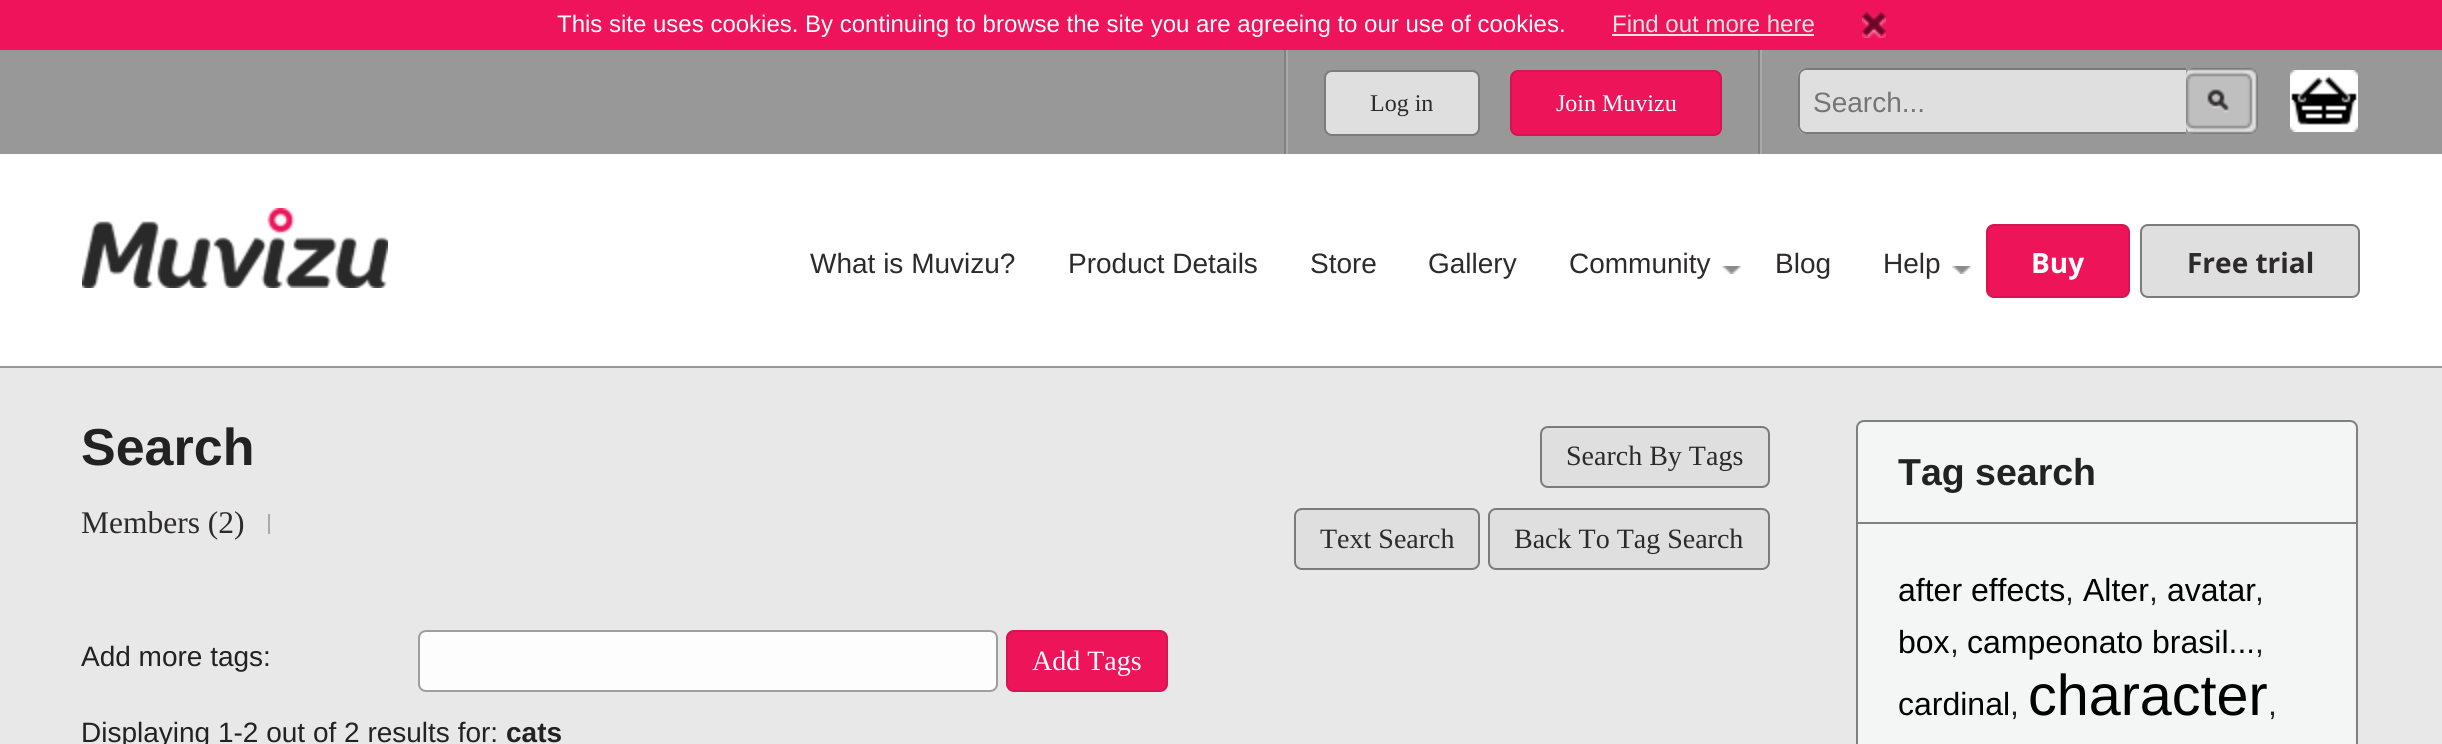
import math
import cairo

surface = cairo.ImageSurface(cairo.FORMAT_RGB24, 2442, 744)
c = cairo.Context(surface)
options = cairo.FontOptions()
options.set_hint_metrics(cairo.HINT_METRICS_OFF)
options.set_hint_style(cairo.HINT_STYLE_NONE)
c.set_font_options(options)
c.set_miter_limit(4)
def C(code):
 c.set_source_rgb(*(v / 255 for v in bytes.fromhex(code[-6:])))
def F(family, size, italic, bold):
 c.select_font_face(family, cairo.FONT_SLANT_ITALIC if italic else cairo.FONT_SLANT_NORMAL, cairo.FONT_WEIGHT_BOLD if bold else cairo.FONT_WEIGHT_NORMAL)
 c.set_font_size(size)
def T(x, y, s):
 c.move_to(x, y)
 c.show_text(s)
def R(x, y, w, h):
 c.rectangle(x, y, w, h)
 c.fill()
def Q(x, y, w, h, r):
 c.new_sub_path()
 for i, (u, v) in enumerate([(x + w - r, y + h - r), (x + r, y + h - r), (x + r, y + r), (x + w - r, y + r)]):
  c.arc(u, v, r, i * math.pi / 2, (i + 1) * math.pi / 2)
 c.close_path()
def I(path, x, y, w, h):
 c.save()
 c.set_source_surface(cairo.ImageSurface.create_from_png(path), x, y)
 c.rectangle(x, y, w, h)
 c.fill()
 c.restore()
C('ffffff')
c.paint()
C('ef135b')
R(0,0,2442,50)
F('Liberation Sans',24,0,0)
C('ffffff')
T(557,32,'This site uses cookies. By continuing to browse the site you are agreeing to our use of cookies.')
C('e5e3e3')
T(1612,32,'Find out more here')
R(1612,34,202,2)
I('1.png',1862,12,24,26)
C('989898')
R(0,50,2442,104)
C('a9a9a9')
R(1760,50,2,104)
C('808080')
R(1284,50,2,104)
C('a9a9a9')
R(1286,50,2,104)
C('dfdfdf')
Q(1325,71,154,64,7)
c.fill_preserve()
C('7b7b7b')
c.stroke()
F('Liberation Serif',24,0,0)
C('2c2a2a')
T(1370,111,'Log in')
C('808080')
R(1758,50,2,104)
C('ed145a')
Q(1511,71,210,64,7)
c.fill_preserve()
C('d51452')
c.stroke()
C('ffffff')
T(1556,111,'Join Muvizu')
C('dfdfdf')
c.new_path()
c.move_to(1806,68)
c.line_to(2186,68)
c.line_to(2186,134)
c.line_to(1806,134)
c.curve_to(1801.5,134,1798,130.5,1798,126)
c.line_to(1798,76)
c.curve_to(1798,71.5,1801.5,68,1806,68)
c.close_path()
c.fill()
C('7b7b7b')
c.set_fill_rule(cairo.FILL_RULE_EVEN_ODD)
c.new_path()
c.move_to(1806,68)
c.line_to(2186,68)
c.line_to(2186,134)
c.line_to(1806,134)
c.curve_to(1802,134,1798,130,1798,126)
c.line_to(1798,76)
c.curve_to(1798,72,1802,68,1806,68)
c.close_path()
c.move_to(1806,70)
c.line_to(2186,70)
c.line_to(2186,132)
c.line_to(1806,132)
c.curve_to(1803,132,1800,129,1800,126)
c.line_to(1800,76)
c.curve_to(1800,73,1803,70,1806,70)
c.close_path()
c.fill()
F('Liberation Sans',28,0,0)
C('757575')
T(1813,112,'Search...')
I('2.png',2186,68,72,66)
I('3.png',2290,70,68,62)
C('989898')
R(0,366,2442,2)
I('4.png',82,208,306,80)
C('2c2a2a')
T(810,273,'What is Muvizu?')
T(1068,273,'Product Details')
T(1310,273,'Store')
T(1428,273,'Gallery')
I('5.png',1722,266,20,8)
T(1569,273,'Community')
T(1775,273,'Blog')
I('5.png',1952,266,20,8)
T(1883,273,'Help')
C('ed145a')
Q(1987,225,142,72,7)
c.fill_preserve()
C('d51452')
c.stroke()
F('Open Sans',28,0,1)
C('ffffff')
T(2031,273,'Buy')
C('dfdfdf')
Q(2141,225,218,72,7)
c.fill_preserve()
C('7b7b7b')
c.stroke()
C('2c2a2a')
T(2187,273,'Free trial')
C('e8e8e8')
R(0,368,2442,376)
F('Liberation Sans',52,0,1)
C('222222')
T(81,465,'Search')
C('dfdfdf')
Q(1541,427,228,60,7)
c.fill_preserve()
C('7b7b7b')
c.stroke()
F('Liberation Serif',28,0,0)
C('2c2a2a')
T(1566,465,'Search By Tags')
C('ababab')
R(268,514,2,20)
F('Liberation Serif',31.5,0,0)
C('2c2a2a')
T(81,533,'Members (2)')
C('dfdfdf')
Q(1295,509,184,60,7)
c.fill_preserve()
C('7b7b7b')
c.stroke()
F('Liberation Serif',28,0,0)
C('2c2a2a')
T(1320,548,'Text Search')
C('dfdfdf')
Q(1489,509,280,60,7)
c.fill_preserve()
C('7b7b7b')
c.stroke()
C('2c2a2a')
T(1514,548,'Back To Tag Search')
F('Liberation Sans',28,0,0)
C('222222')
T(81,666,'Add more tags:')
C('fdfdfd')
Q(419,631,578,60,7)
c.fill_preserve()
C('9e9e9e')
c.stroke()
C('ed145a')
Q(1007,631,160,60,7)
c.fill_preserve()
C('d51452')
c.stroke()
F('Liberation Serif',28,0,0)
C('ffffff')
T(1032,670,'Add Tags')
F('Liberation Sans',28,0,0)
C('222222')
T(81,742,'Displaying 1-2 out of 2 results for:')
F('Liberation Sans',28,0,1)
T(506,742,'cats')
C('f4f5f5')
Q(1857,421,500,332,7)
c.fill_preserve()
C('7f7f7f')
c.stroke()
R(1858,522,498,2)
F('Liberation Sans',37.5,0,1)
C('222222')
T(1898,485,'Tag search')
F('Liberation Sans',32,0,0)
C('000000')
T(1898,601,'after effects')
C('222222')
T(2065,601,',')
C('000000')
T(2083,601,'Alter')
C('222222')
T(2149,601,',')
C('000000')
T(2167,601,'avatar')
C('222222')
T(2255,601,',')
C('000000')
T(1898,653,'box')
C('222222')
T(1950,653,',')
C('000000')
T(1967,653,'campeonato brasil...')
C('222222')
T(2255,653,',')
C('000000')
T(1898,715,'cardinal')
C('222222')
T(2010,715,',')
F('Liberation Sans',57.5,0,0)
C('000000')
T(2028,715,'character')
F('Liberation Sans',32,0,0)
C('222222')
T(2268,715,',')
surface.write_to_png('o.png')
